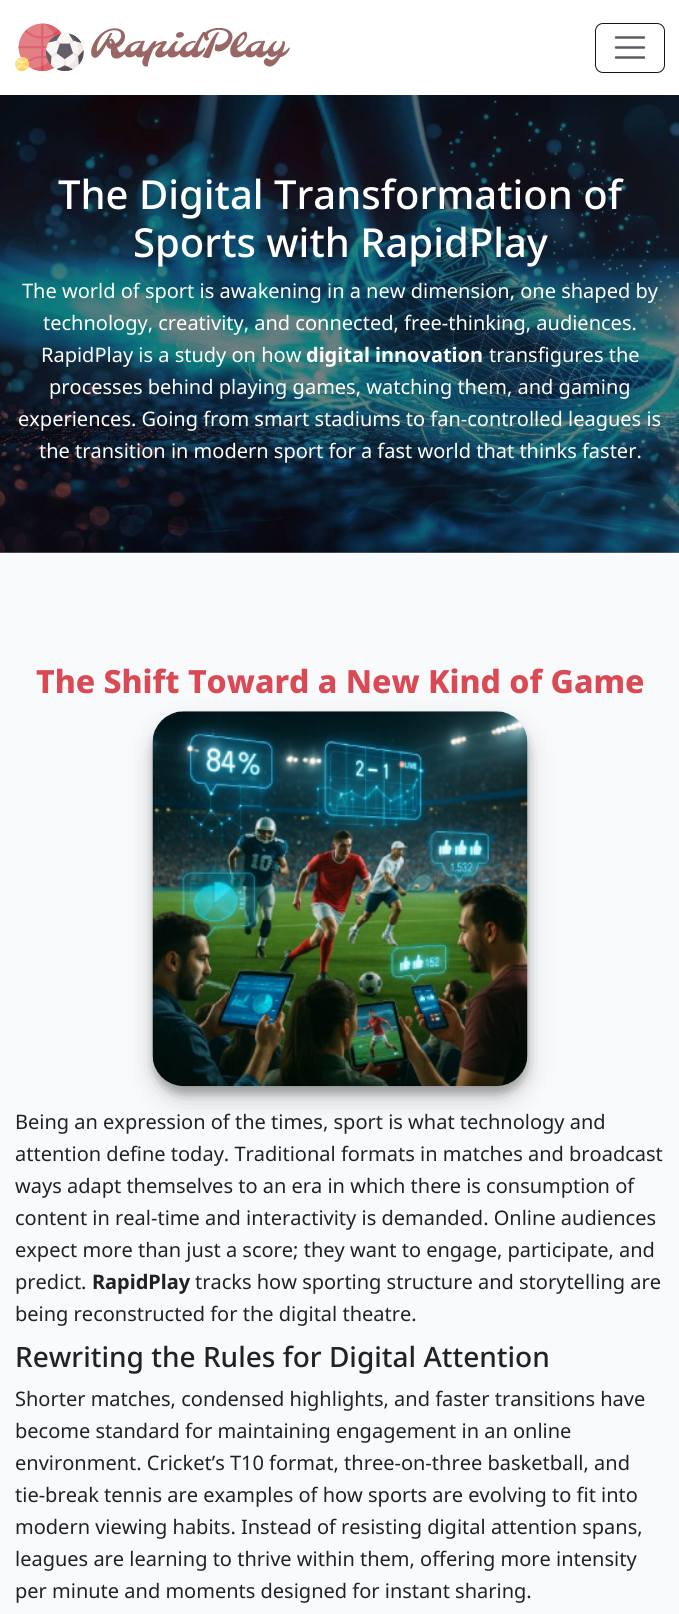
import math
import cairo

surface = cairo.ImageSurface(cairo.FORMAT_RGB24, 679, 1614)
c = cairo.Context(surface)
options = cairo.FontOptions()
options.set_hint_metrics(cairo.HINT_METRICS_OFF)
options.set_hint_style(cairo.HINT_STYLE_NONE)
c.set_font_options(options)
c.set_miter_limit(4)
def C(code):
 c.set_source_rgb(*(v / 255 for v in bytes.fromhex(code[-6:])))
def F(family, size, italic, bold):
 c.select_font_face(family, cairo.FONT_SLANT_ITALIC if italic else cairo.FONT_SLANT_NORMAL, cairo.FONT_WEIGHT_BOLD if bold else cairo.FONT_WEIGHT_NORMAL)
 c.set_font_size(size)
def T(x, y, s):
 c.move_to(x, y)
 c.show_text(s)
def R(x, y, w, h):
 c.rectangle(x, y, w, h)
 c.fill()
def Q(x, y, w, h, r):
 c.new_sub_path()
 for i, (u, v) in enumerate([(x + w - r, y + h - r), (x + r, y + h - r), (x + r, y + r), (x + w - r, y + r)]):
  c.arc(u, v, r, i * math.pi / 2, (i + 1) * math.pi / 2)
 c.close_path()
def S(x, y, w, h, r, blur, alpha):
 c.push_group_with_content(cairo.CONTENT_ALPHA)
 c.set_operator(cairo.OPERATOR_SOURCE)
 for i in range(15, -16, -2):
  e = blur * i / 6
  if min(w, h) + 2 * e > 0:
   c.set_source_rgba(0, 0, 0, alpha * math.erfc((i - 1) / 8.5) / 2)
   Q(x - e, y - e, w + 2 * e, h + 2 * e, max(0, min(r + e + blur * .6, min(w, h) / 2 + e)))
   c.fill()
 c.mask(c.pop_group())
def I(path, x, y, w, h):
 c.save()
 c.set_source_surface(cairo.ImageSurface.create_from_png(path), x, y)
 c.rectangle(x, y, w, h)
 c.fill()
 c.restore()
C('f8fafc')
c.paint()
C('7c7d7e')
R(0,552,679,1)
C('ffffff')
R(0,0,679,95)
I('1.png',15,23,275,48)
Q(595.5,23.5,69,49,7.5)
C('141414')
c.set_line_width(1)
c.stroke()
c.new_path()
c.move_to(616,37.5)
c.line_to(644,37.5)
c.move_to(616,47.5)
c.line_to(644,47.5)
c.move_to(616,57.5)
c.line_to(644,57.5)
C('595c5f')
c.set_line_width(2.5)
c.set_line_cap(cairo.LINE_CAP_ROUND)
c.stroke()
I('2.png',0,95,679,458)
F('Noto Sans Medium',40,0,0)
C('ffffff')
T(58,209,'The Digital Transformation of')
T(133,257,'Sports with RapidPlay')
F('Noto Sans',20,0,0)
T(22,298,'The world of sport is awakening in a new dimension, one shaped by')
T(43,330,'technology, creativity, and connected, free-thinking, audiences.')
T(41,362,'RapidPlay is a study on how')
F('Noto Sans',20,0,1)
T(306,362,'digital innovation')
F('Noto Sans',20,0,0)
T(489,362,'transfigures the')
T(49,394,'processes behind playing games, watching them, and gaming')
T(18,426,'experiences. Going from smart stadiums to fan-controlled leagues is')
T(39,458,'the transition in modern sport for a fast world that thinks faster.')
C('000000')
S(153,724,375,375,31,12.5,.19)
F('Noto Sans ExtraBold',32,0,0)
C('da4a54')
T(36,693,'The Shift Toward a New Kind of Game')
C('000000')
S(153,719,375,375,31,4,.23)
I('3.png',152,711,376,376)
F('Noto Sans',20,0,0)
C('222222')
T(15,1129,'Being an expression of the times, sport is what technology and')
T(15,1161,'attention define today. Traditional formats in matches and broadcast')
T(15,1193,'ways adapt themselves to an era in which there is consumption of')
T(15,1225,'content in real-time and interactivity is demanded. Online audiences')
T(15,1257,'expect more than just a score; they want to engage, participate, and')
T(15,1289,'predict.')
F('Noto Sans',20,0,1)
T(92,1289,'RapidPlay')
F('Noto Sans',20,0,0)
T(195,1289,'tracks how sporting structure and storytelling are')
T(15,1321,'being reconstructed for the digital theatre.')
F('Noto Sans Medium',28,0,0)
T(15,1367,'Rewriting the Rules for Digital Attention')
F('Noto Sans',20,0,0)
T(15,1406,'Shorter matches, condensed highlights, and faster transitions have')
T(15,1438,'become standard for maintaining engagement in an online')
T(15,1470,'environment. Cricket’s T10 format, three-on-three basketball, and')
T(15,1502,'tie-break tennis are examples of how sports are evolving to fit into')
T(15,1534,'modern viewing habits. Instead of resisting digital attention spans,')
T(15,1566,'leagues are learning to thrive within them, offering more intensity')
T(15,1598,'per minute and moments designed for instant sharing.')
surface.write_to_png('o.png')
